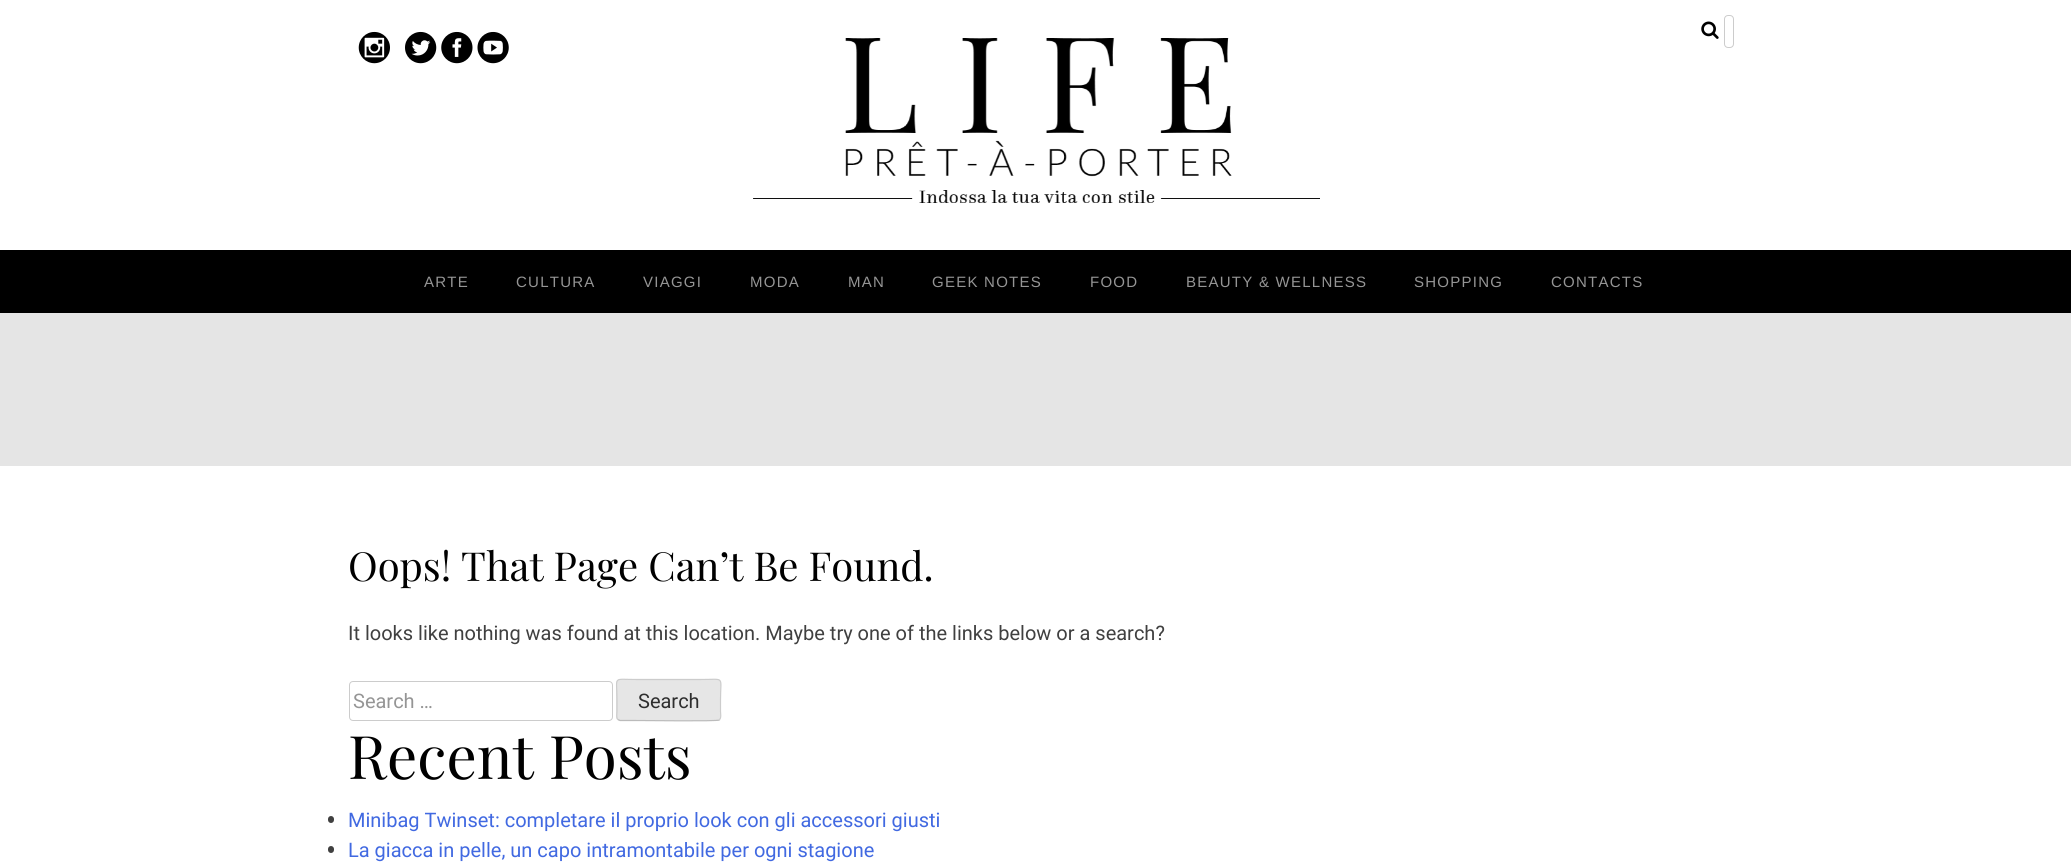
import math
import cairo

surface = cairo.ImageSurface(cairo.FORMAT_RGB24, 2071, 867)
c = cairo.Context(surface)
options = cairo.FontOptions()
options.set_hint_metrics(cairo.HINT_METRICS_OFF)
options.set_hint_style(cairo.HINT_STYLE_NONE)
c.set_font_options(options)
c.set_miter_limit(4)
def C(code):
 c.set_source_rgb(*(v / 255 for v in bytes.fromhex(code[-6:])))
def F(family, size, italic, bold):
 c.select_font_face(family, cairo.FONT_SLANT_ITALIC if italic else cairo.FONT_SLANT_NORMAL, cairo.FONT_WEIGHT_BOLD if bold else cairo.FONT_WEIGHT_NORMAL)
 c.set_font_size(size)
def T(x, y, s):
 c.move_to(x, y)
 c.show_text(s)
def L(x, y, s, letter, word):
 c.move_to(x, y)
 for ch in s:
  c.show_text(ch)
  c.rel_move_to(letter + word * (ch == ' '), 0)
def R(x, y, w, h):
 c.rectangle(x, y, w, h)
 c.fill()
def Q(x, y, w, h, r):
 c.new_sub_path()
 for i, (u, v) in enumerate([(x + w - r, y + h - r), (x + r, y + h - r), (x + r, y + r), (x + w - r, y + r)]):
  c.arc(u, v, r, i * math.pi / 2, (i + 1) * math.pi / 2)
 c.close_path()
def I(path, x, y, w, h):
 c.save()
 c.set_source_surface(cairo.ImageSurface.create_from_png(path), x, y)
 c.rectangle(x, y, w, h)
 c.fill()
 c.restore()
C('ffffff')
c.paint()
I('1.png',358,31,32,33)
I('2.png',405,31,32,33)
I('3.png',441,31,32,33)
I('4.png',477,31,32,33)
I('5.png',1701,21,18,18)
Q(1724.5,15.5,9,32,3.5)
C('cccccc')
c.set_line_width(1)
c.stroke()
I('6.png',753,38,567,165)
C('000000')
R(0,250,2071,63)
F('Arimo',15,0,0)
C('959595')
L(424,287,'ARTE',1.25,0)
L(516,287,'CULTURA',1.25,0)
L(643,287,'VIAGGI',1.25,0)
L(750,287,'MODA',1.25,0)
L(848,287,'MAN',1.25,0)
L(932,287,'GEEK NOTES',1.25,0)
L(1090,287,'FOOD',1.25,0)
L(1186,287,'BEAUTY & WELLNESS',1.25,0)
L(1414,287,'SHOPPING',1.25,0)
L(1551,287,'CONTACTS',1.25,0)
C('e5e5e5')
R(0,313,2071,153)
F('Playfair Display',40,0,0)
C('000000')
T(348,581,'Oops! That Page Can’t Be Found.')
F('Roboto',20,0,0)
C('404040')
T(348,640,'It looks like nothing was found at this location. Maybe try one of the links below or a search?')
Q(349.5,681.5,263,39,3.5)
C('cccccc')
c.stroke()
C('959595')
T(353,708,'Search …')
C('e6e6e6')
Q(616,679,105,42,4)
c.fill()
c.new_path()
c.move_to(719.5,719.5)
c.line_to(719.5,720)
c.curve_to(717.5,721.5,645,720.5,636,720.5)
c.line_to(620,720.5)
c.line_to(618,719.5)
C('bbbbbb')
c.set_line_width(1.2)
c.stroke()
c.new_path()
c.move_to(618,719.5)
c.curve_to(616,718,617,713,617,711.5)
c.line_to(617,700)
c.curve_to(617,675.5,612,679.5,636,679.5)
c.line_to(701,679.5)
c.curve_to(725.5,679.5,720.5,675.5,720.5,700)
c.line_to(720.5,711.5)
c.curve_to(720.5,713,721.5,718,719.5,719.5)
C('cccccc')
c.stroke()
C('2e2e2e')
T(638,708,'Search')
F('Playfair Display',60,0,0)
C('000000')
T(348,779,'Recent Posts')
C('404040')
Q(328,816,6,7,3)
c.fill()
F('Roboto',20,0,0)
C('4169e1')
T(348,827,'Minibag Twinset: completare il proprio look con gli accessori giusti')
C('404040')
Q(328,846,6,7,3)
c.fill()
C('4169e1')
T(348,857,'La giacca in pelle, un capo intramontabile per ogni stagione')
surface.write_to_png('o.png')
